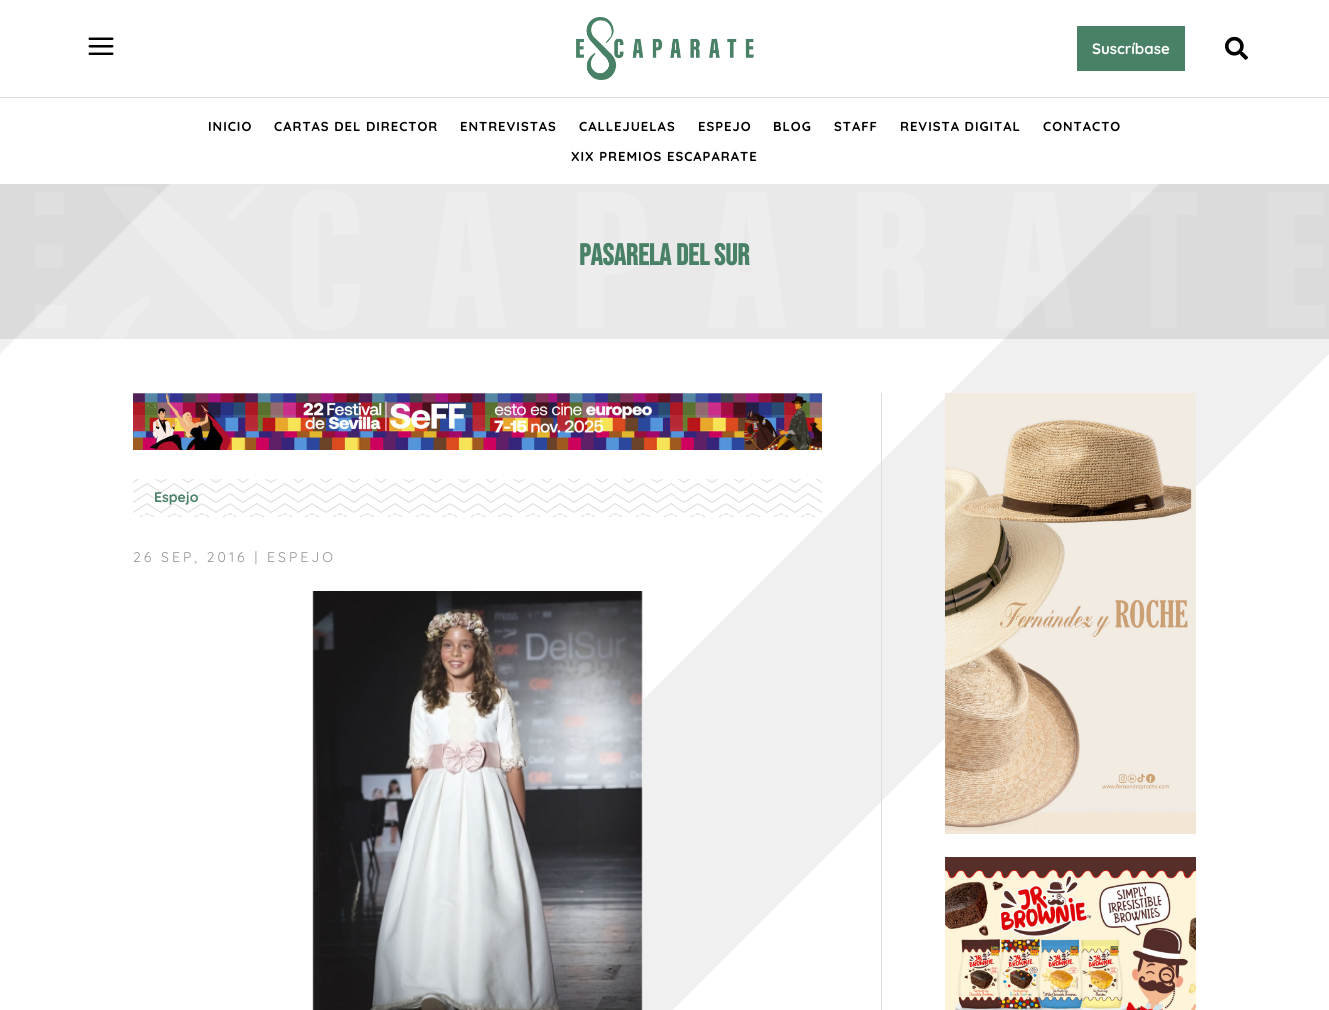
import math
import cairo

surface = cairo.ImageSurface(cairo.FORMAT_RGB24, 1329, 1010)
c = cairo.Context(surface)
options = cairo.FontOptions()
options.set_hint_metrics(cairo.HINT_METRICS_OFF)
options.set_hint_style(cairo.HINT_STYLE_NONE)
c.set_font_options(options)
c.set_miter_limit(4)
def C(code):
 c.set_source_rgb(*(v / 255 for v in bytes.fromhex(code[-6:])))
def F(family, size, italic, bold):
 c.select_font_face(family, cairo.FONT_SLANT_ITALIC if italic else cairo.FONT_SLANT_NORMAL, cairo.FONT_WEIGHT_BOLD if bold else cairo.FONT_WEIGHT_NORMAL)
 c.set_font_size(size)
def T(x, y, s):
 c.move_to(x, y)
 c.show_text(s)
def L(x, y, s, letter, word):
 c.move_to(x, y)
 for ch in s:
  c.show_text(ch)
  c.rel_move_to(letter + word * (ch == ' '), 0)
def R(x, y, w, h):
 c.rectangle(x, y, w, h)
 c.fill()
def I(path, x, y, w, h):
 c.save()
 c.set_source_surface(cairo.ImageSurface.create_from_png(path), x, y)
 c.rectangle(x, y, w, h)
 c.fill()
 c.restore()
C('ffffff')
c.paint()
C('dddddd')
R(0,97,1329,1)
I('1.png',88,37,26,18)
I('2.png',576,17,178,63)
C('498166')
R(1077,26,108,45)
F('Quicksand',15,0,1)
C('ffffff')
T(1092,54,'Suscríbase')
I('3.png',1225,36,23,24)
F('Quicksand',13,0,1)
C('000000')
L(208,131,'INICIO',1,0)
L(274,131,'CARTAS DEL DIRECTOR',1,0)
L(460,131,'ENTREVISTAS',1,0)
L(579,131,'CALLEJUELAS',1,0)
L(698,131,'ESPEJO',1,0)
L(773,131,'BLOG',1,0)
L(834,131,'STAFF',1,0)
L(900,131,'REVISTA DIGITAL',1,0)
L(1043,131,'CONTACTO',1,0)
L(571,161,'XIX PREMIOS ESCAPARATE',1,0)
C('e9e9e9')
R(0,184,1329,155)
I('4.png',35,187,1290,152)
c.set_source_rgba(0,0,0,0.06)
c.new_path()
c.move_to(170,184)
c.line_to(0,354)
c.line_to(0,184)
c.close_path()
c.move_to(1329,184)
c.line_to(1159,184)
c.line_to(0,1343)
c.line_to(0,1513)
c.line_to(170,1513)
c.line_to(1329,354)
c.close_path()
c.move_to(1329,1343)
c.line_to(1159,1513)
c.line_to(1329,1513)
c.close_path()
c.fill()
F('Bebas Neue',30,0,1)
C('498166')
T(579,265,'Pasarela del Sur')
I('5.png',133,393,689,57)
I('6.png',133,479,689,38)
F('Quicksand',14,0,1)
T(154,502,'Espejo')
F('Quicksand',14,0,0)
C('939393')
L(133,562,'26 SEP, 2016 | ESPEJO',3,0)
I('7.png',312,591,331,419)
C('dddddd')
R(881,393,1,617)
I('8.png',945,393,251,441)
I('9.png',945,857,251,153)
surface.write_to_png('o.png')
